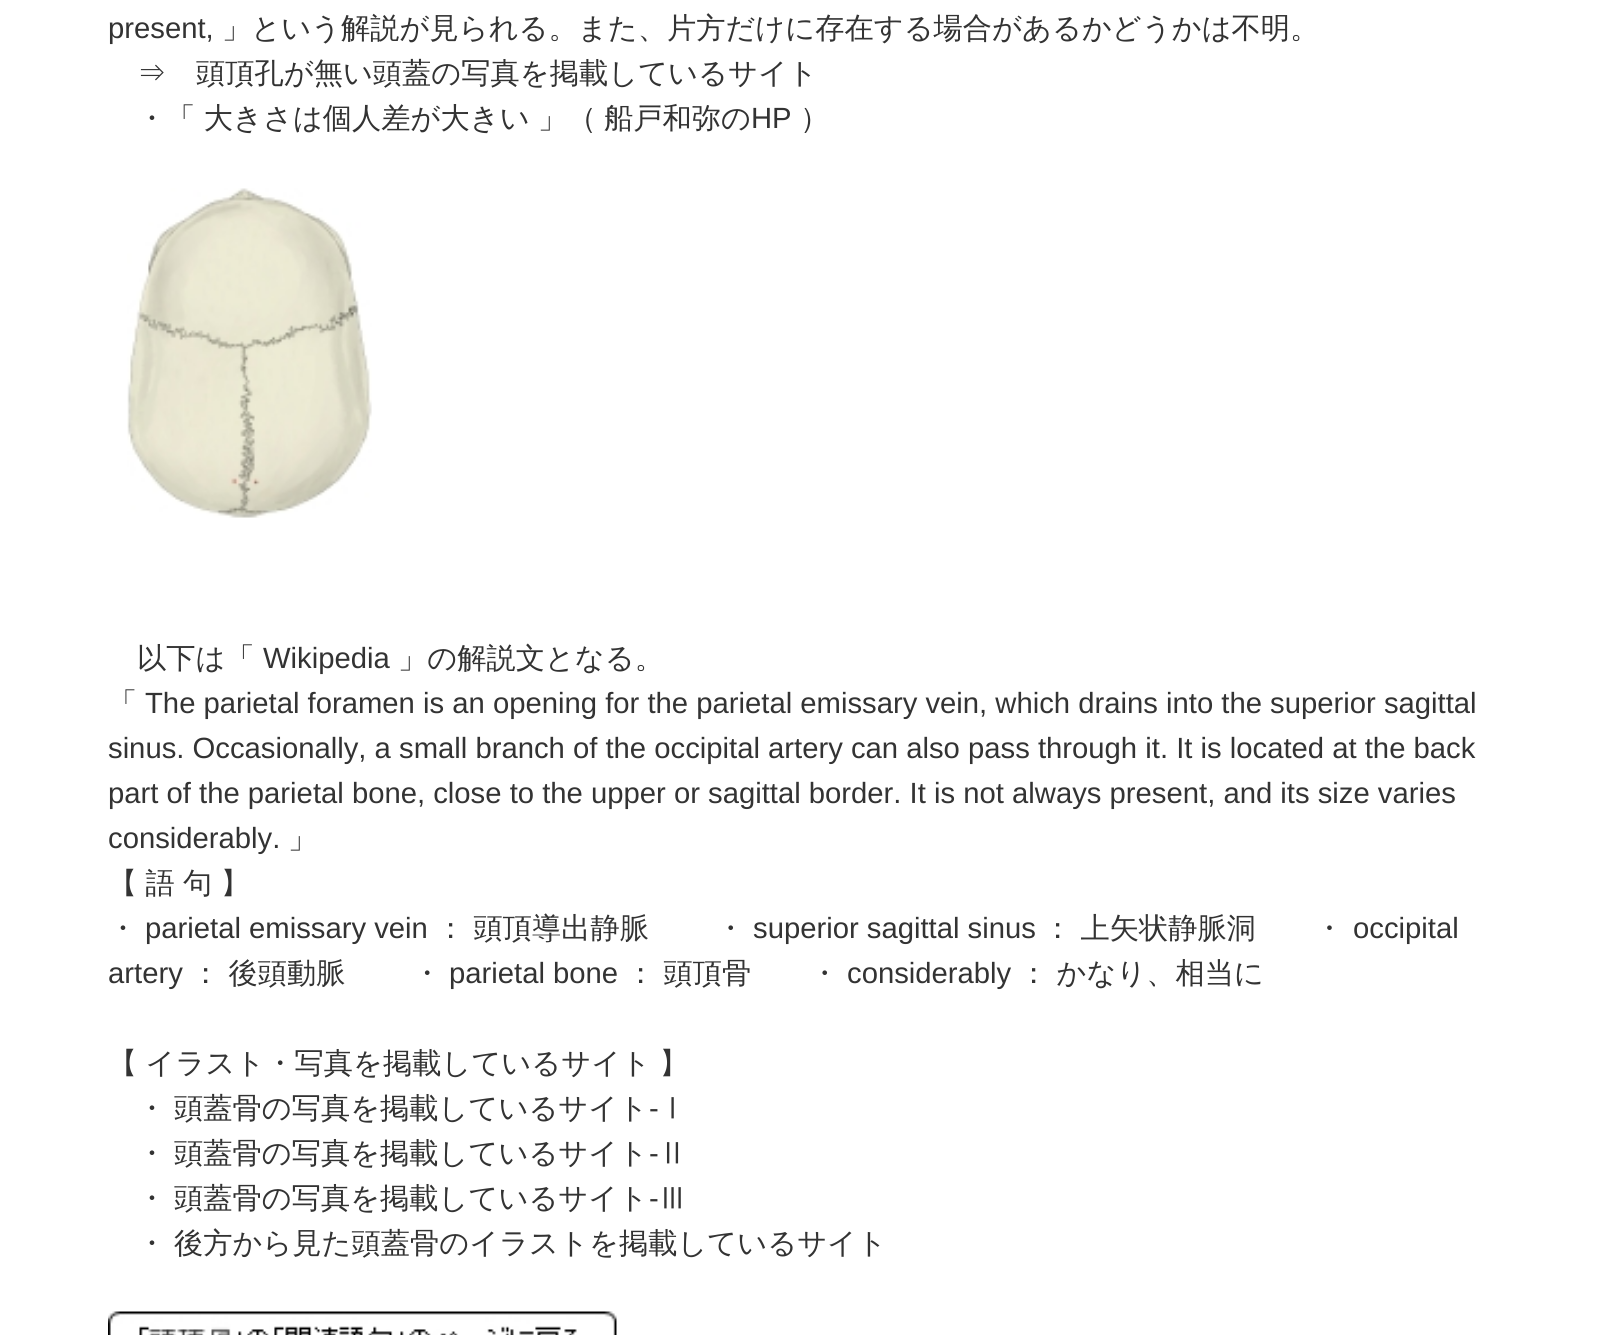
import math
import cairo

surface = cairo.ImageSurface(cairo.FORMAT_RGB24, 1613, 1335)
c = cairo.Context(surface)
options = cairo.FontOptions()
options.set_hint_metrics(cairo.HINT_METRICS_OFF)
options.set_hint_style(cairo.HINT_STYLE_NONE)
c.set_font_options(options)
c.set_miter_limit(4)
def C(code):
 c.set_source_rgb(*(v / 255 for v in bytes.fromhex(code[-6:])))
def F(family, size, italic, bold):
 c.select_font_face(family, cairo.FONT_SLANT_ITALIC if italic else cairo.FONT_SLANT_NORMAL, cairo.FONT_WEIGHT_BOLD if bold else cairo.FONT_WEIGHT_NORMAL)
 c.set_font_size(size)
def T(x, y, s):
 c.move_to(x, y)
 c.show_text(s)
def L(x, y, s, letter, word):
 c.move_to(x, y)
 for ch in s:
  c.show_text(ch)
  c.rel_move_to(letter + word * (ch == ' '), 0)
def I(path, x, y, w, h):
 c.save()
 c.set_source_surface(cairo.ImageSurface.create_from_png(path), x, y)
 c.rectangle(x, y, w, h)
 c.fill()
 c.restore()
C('ffffff')
c.paint()
F('Liberation Sans',29.25,0,0)
C('333333')
T(108,38,'present,')
F('WenQuanYi Zen Hei Medium',29.25,0,0)
T(222,38,'」という解説が見られる。また、片方だけに存在する場合があるかどうかは不明。')
T(137,83,'⇒')
T(196,83,'頭頂孔が無い頭蓋の写真を掲載しているサイト')
L(137,128,'・「 大きさは個人差が大きい 」（',0,-.5)
T(604,128,'船戸和弥の')
F('Liberation Sans',29.25,0,0)
T(751,128,'HP')
F('WenQuanYi Zen Hei Medium',29.25,0,0)
T(800,128,'）')
I('1.png',127,188,245,330)
T(137,668,'以下は「')
F('Liberation Sans',29.25,0,0)
T(263,668,'Wikipedia')
F('WenQuanYi Zen Hei Medium',29.25,0,0)
T(398,668,'」の解説文となる。')
T(108,713,'「')
F('Liberation Sans',29.25,0,0)
T(145,713,'The parietal foramen is an opening for the parietal emissary vein, which drains into the superior sagittal')
T(108,758,'sinus. Occasionally, a small branch of the occipital artery can also pass through it. It is located at the back')
T(108,803,'part of the parietal bone, close to the upper or sagittal border. It is not always present, and its size varies')
T(108,848,'considerably.')
F('WenQuanYi Zen Hei Medium',29.25,0,0)
T(288,848,'」')
L(108,893,'【 語 句 】',0,-.5)
T(108,938,'・')
F('Liberation Sans',29.25,0,0)
T(145,938,'parietal emissary vein')
F('WenQuanYi Zen Hei Medium',29.25,0,0)
L(436,938,'： 頭頂導出静脈 　　・',0,-.5)
F('Liberation Sans',29.25,0,0)
T(753,938,'superior sagittal sinus')
F('WenQuanYi Zen Hei Medium',29.25,0,0)
L(1043,938,'： 上矢状静脈洞　　・',0,-.5)
F('Liberation Sans',29.25,0,0)
T(1353,938,'occipital')
T(108,983,'artery')
F('WenQuanYi Zen Hei Medium',29.25,0,0)
L(191,983,'： 後頭動脈 　　・',0,-.5)
F('Liberation Sans',29.25,0,0)
T(449,983,'parietal bone')
F('WenQuanYi Zen Hei Medium',29.25,0,0)
L(626,983,'： 頭頂骨　　・',0,-.5)
F('Liberation Sans',29.25,0,0)
T(847,983,'considerably')
F('WenQuanYi Zen Hei Medium',29.25,0,0)
L(1019,983,'： かなり、相当に',0,-.5)
L(108,1073,'【 イラスト・写真を掲載しているサイト 】',0,-.5)
T(137,1118,'・')
T(174,1118,'頭蓋骨の写真を掲載しているサイト')
T(658,1118,'Ⅰ')
F('Liberation Sans',29.25,0,0)
T(649,1118,'-')
F('WenQuanYi Zen Hei Medium',29.25,0,0)
T(137,1163,'・')
T(174,1163,'頭蓋骨の写真を掲載しているサイト')
T(658,1163,'Ⅱ')
F('Liberation Sans',29.25,0,0)
T(649,1163,'-')
F('WenQuanYi Zen Hei Medium',29.25,0,0)
T(137,1208,'・')
T(174,1208,'頭蓋骨の写真を掲載しているサイト')
T(658,1208,'Ⅲ')
F('Liberation Sans',29.25,0,0)
T(649,1208,'-')
F('WenQuanYi Zen Hei Medium',29.25,0,0)
T(137,1253,'・')
T(174,1253,'後方から見た頭蓋骨のイラストを掲載しているサイト')
I('2.png',108,1311,509,24)
surface.write_to_png('o.png')
